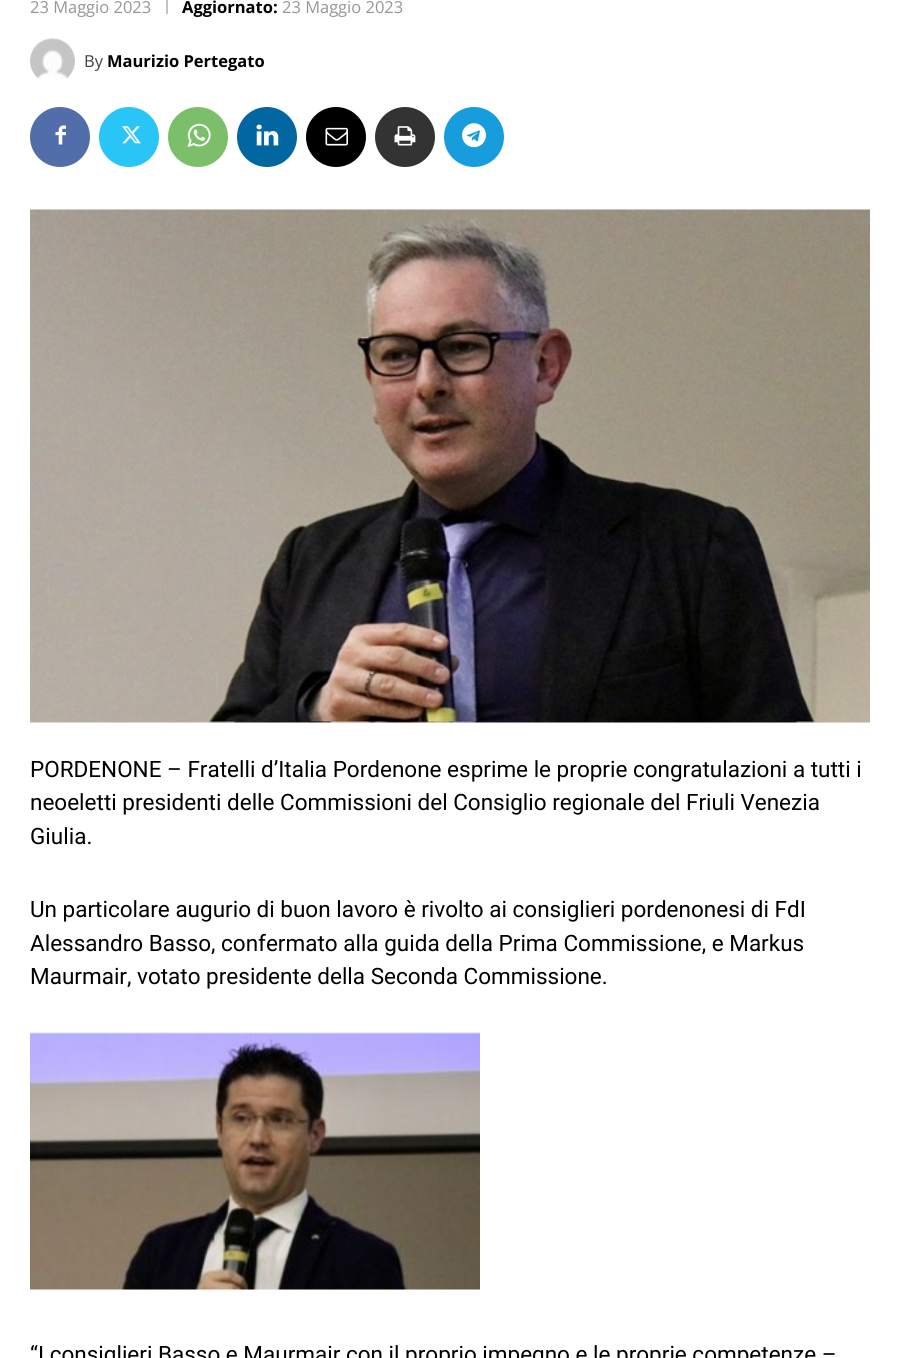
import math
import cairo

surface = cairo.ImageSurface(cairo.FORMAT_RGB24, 900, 1358)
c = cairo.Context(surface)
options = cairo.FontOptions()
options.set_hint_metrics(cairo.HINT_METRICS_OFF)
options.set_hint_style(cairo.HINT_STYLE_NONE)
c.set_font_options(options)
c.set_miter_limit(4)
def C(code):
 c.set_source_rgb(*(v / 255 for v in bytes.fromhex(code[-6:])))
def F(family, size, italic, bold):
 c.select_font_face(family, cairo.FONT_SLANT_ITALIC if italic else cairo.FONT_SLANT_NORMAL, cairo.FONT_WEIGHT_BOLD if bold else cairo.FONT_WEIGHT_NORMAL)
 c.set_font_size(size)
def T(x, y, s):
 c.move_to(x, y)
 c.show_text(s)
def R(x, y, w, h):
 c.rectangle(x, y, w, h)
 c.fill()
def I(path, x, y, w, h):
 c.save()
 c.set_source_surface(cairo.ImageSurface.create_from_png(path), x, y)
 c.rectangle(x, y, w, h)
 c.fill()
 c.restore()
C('ffffff')
c.paint()
F('Open Sans',16.5,0,0)
C('969696')
T(30,13,'23 Maggio 2023')
C('c4c4c4')
R(166,0,2,14)
F('Open Sans',16.5,0,1)
C('000000')
T(182,13,'Aggiornato:')
F('Open Sans',16.5,0,0)
C('969696')
T(282,13,'23 Maggio 2023')
I('1.png',30,38,45,41)
C('444444')
T(84,67,'By')
F('Open Sans',16.5,0,1)
C('000000')
T(107,67,'Maurizio Pertegato')
C('516eab')
c.new_path()
c.arc(60,137,30,0,2 * math.pi)
c.fill()
I('2.png',55,125,11,20)
C('29c5f6')
c.arc(129,137,30,0,2 * math.pi)
c.fill()
I('3.png',122,126,19,18)
C('7bbf6a')
c.arc(198,137,30,0,2 * math.pi)
c.fill()
I('4.png',187,123,24,24)
C('0266a0')
c.arc(267,137,30,0,2 * math.pi)
c.fill()
I('5.png',256,124,23,22)
C('000000')
c.arc(336,137,30,0,2 * math.pi)
c.fill()
I('6.png',325,127,23,19)
C('333333')
c.arc(405,137,30,0,2 * math.pi)
c.fill()
I('7.png',394,126,22,20)
C('179cde')
c.arc(474,137,30,0,2 * math.pi)
c.fill()
I('8.png',462,123,24,25)
I('9.png',30,209,840,514)
F('Roboto',22.5,0,0)
C('000000')
T(30,777,'PORDENONE – Fratelli d’Italia Pordenone esprime le proprie congratulazioni a tutti i')
T(30,810,'neoeletti presidenti delle Commissioni del Consiglio regionale del Friuli Venezia')
T(30,844,'Giulia.')
T(30,917,'Un particolare augurio di buon lavoro è rivolto ai consiglieri pordenonesi di FdI')
T(30,951,'Alessandro Basso, confermato alla guida della Prima Commissione, e Markus')
T(30,984,'Maurmair, votato presidente della Seconda Commissione.')
I('10.png',30,1032,450,258)
T(30,1362,'“I consiglieri Basso e Maurmair con il proprio impegno e le proprie competenze –')
surface.write_to_png('o.png')
